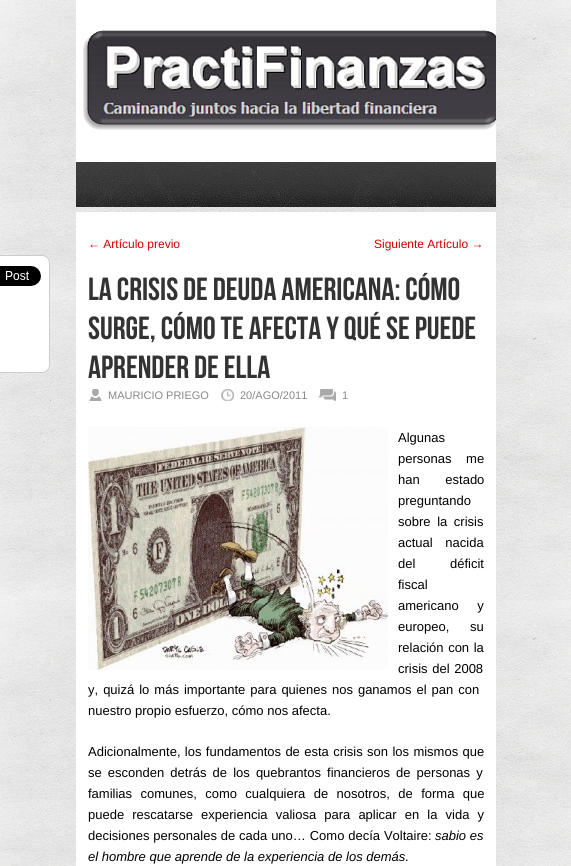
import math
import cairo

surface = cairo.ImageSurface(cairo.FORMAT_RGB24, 571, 866)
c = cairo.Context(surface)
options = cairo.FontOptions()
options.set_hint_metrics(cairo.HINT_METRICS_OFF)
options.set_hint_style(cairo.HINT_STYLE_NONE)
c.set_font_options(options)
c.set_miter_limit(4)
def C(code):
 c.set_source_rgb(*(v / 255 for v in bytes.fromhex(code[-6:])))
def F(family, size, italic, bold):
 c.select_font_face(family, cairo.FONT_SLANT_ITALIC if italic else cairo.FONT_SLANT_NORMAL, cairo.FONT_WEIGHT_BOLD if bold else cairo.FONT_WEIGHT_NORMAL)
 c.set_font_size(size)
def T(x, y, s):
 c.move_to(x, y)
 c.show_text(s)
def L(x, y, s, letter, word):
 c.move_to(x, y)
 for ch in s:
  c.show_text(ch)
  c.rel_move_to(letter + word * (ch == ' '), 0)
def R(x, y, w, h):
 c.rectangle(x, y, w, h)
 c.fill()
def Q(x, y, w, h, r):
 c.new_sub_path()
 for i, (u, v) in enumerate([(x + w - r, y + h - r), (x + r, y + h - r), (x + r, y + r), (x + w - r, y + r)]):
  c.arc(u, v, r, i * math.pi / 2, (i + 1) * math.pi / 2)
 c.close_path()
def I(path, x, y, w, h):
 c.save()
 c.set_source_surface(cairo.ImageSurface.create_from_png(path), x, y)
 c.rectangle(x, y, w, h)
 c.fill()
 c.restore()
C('f6f6f6')
c.paint()
I('1.png',0,0,571,866)
C('ffffff')
R(76,0,420,866)
I('2.png',83,30,413,100)
I('3.png',76,162,420,50)
F('Liberation Sans',12,0,0)
C('d00000')
T(88,248,'← Artículo previo')
T(374,248,'Siguiente Artículo →')
C('ffffff')
Q(-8.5,255.5,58,117,7.5)
c.fill_preserve()
C('cccccc')
c.set_line_width(1)
c.stroke()
I('4.png',0,266,41,20)
F('Bebas Neue',32,0,0)
C('333333')
T(88,300,'La crisis de deuda americana: cómo')
T(88,339,'surge, cómo te afecta y qué se puede')
T(88,378,'aprender de ella')
I('5.png',89,389,13,12)
F('Liberation Sans',11,0,0)
C('888888')
T(108,399,'MAURICIO PRIEGO')
I('6.png',221,389,13,12)
T(240,399,'20/AGO/2011')
I('7.png',318,389,18,12)
T(342,399,'1')
I('8.png',88,427,300,243)
F('Liberation Sans',13,0,0)
C('000000')
T(398,442,'Algunas')
L(398,463,'personas me',0,11)
L(398,484,'han estado',0,22)
T(398,505,'preguntando')
L(398,526,'sobre la crisis',0,3)
L(398,547,'actual nacida',0,9)
L(398,568,'del déficit',0,31)
T(398,589,'fiscal')
L(398,610,'americano y',0,15)
L(398,631,'europeo, su',0,17)
L(398,652,'relación con la',0,1)
L(398,673,'crisis del 2008',0,1)
L(88,694,'y, quizá lo más importante para quienes nos ganamos el pan con',0,1.4)
T(88,715,'nuestro propio esfuerzo, cómo nos afecta.')
L(88,756,'Adicionalmente, los fundamentos de esta crisis son los mismos que',0,.75)
L(88,777,'se esconden detrás de los quebrantos financieros de personas y',0,2.5)
L(88,798,'familias comunes, como cualquiera de nosotros, de forma que',0,4.75)
L(88,819,'puede rescatarse experiencia valiosa para aplicar en la vida y',0,4.5)
L(88,840,'decisiones personales de cada uno… Como decía Voltaire:',0,.25)
F('Liberation Sans',13,1,0)
T(435,840,'sabio es')
T(88,861,'el hombre que aprende de la experiencia de los demás')
F('Liberation Sans',13,0,0)
T(405,861,'.')
surface.write_to_png('o.png')
